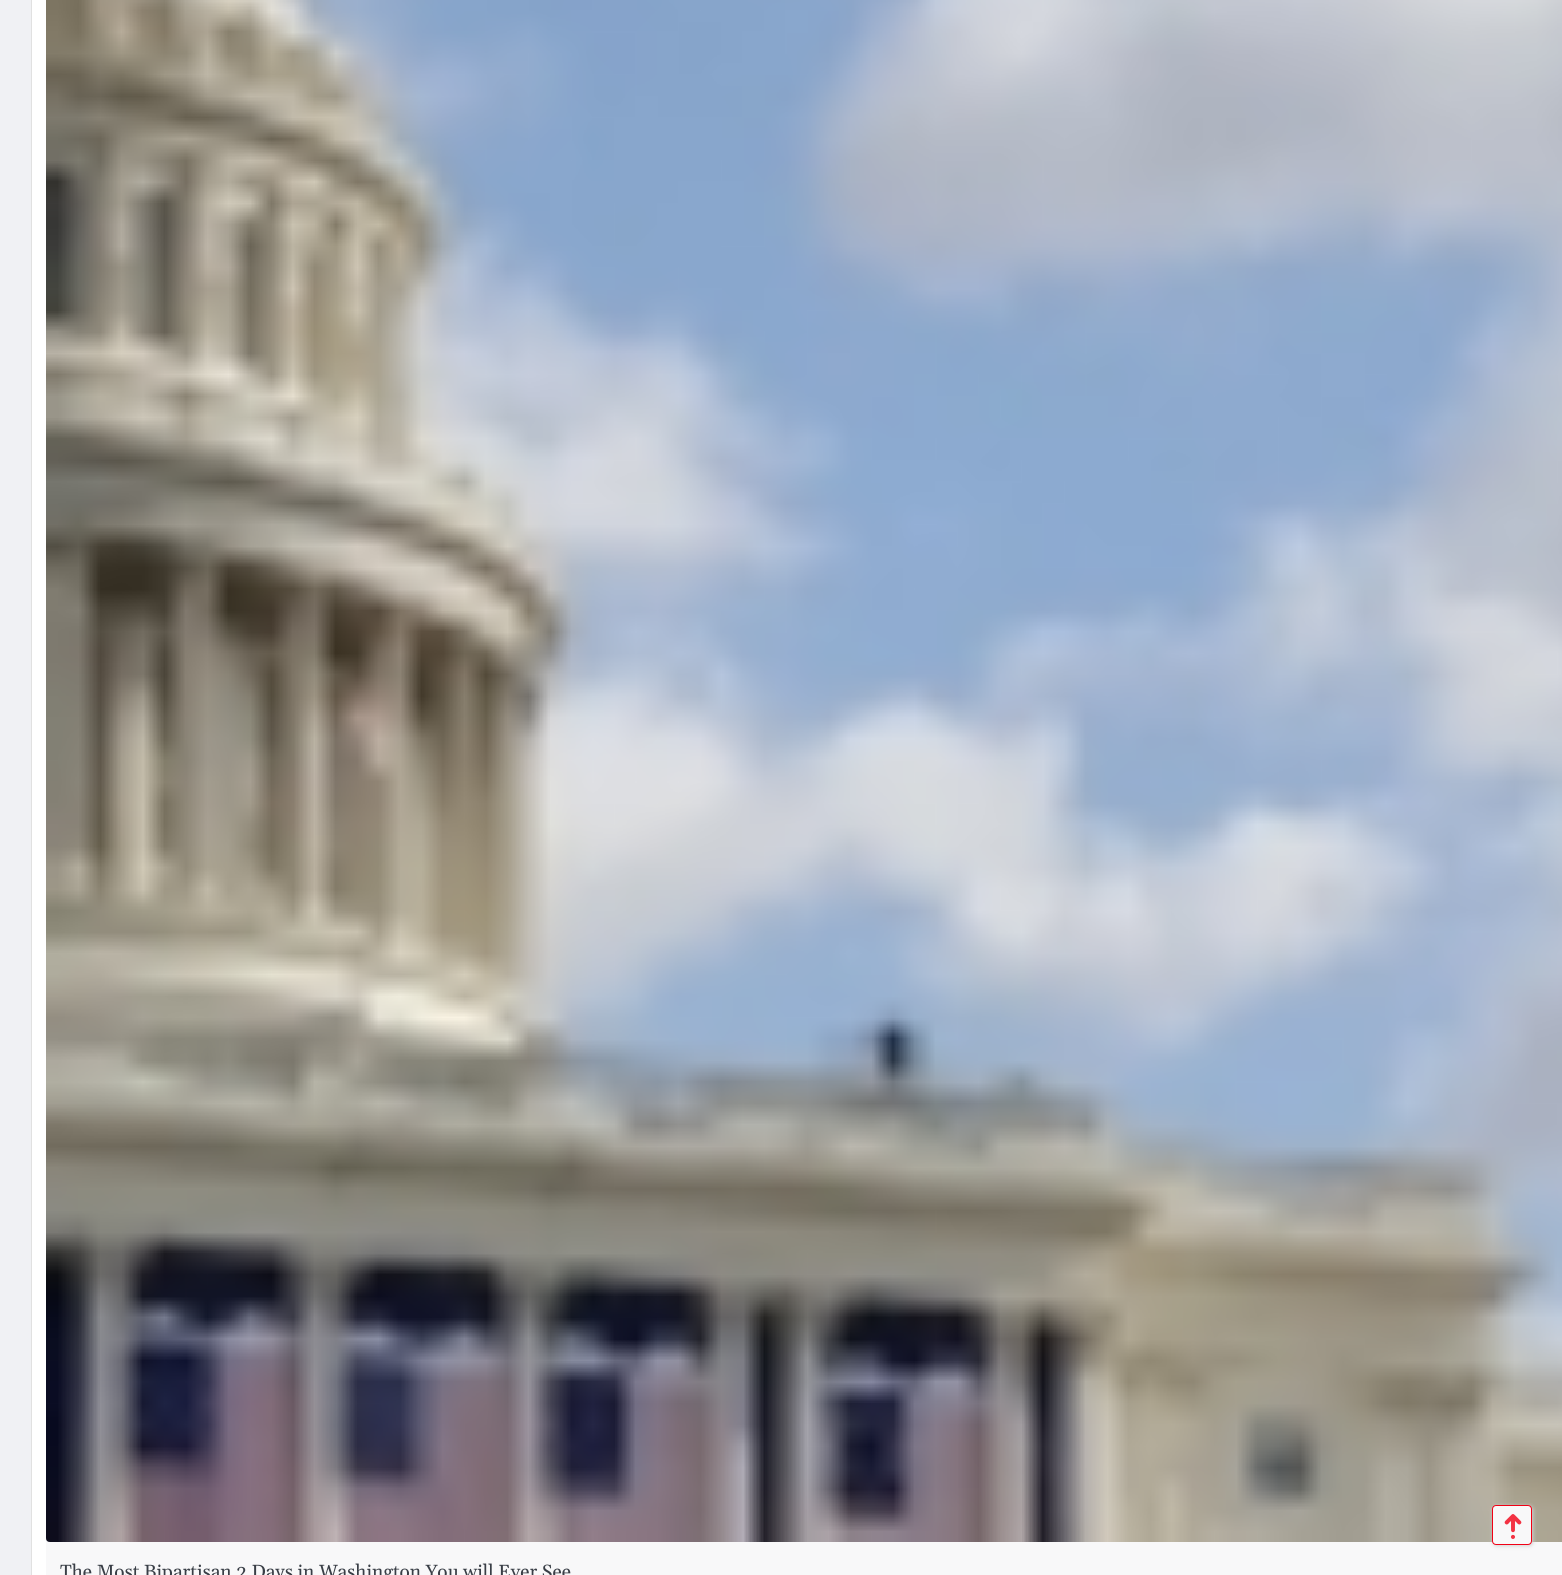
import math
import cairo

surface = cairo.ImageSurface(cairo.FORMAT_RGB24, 1562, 1575)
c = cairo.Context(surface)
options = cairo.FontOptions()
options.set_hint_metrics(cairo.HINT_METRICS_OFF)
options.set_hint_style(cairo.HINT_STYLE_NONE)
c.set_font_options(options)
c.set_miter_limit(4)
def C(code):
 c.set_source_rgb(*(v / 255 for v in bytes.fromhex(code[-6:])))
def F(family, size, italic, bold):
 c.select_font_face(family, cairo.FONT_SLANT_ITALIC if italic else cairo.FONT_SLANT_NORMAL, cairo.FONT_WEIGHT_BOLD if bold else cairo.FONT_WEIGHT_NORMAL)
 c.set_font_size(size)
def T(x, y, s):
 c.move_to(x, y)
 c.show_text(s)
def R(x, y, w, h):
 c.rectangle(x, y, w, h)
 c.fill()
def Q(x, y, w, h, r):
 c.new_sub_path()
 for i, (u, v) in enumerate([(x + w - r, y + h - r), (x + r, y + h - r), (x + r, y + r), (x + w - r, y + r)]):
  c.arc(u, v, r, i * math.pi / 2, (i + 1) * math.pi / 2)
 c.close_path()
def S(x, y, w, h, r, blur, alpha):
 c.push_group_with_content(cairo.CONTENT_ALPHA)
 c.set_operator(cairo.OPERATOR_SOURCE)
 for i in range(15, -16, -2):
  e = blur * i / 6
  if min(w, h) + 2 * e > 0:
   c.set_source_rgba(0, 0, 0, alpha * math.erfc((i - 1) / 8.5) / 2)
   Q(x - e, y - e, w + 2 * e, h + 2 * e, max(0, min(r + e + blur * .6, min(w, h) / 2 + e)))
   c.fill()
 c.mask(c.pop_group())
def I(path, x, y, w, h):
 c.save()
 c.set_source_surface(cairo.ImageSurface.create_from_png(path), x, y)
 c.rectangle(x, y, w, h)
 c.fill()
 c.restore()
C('f0f1f4')
c.paint()
C('ffffff')
R(32,0,14,1575)
c.rectangle(31.5,-.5,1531,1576)
C('e1e1e1')
c.set_line_width(1)
c.stroke()
C('f8f8f9')
R(46,1538,1516,37)
I('2.png',46,0,1516,1542)
C('d1d1d1')
S(1493,1506,40,40,4,2,1)
C('f8f8f9')
Q(1492.5,1505.5,39,39,3.5)
c.fill_preserve()
C('f10015')
c.stroke()
I('1.png',1504,1514,18,25)
F('Gelasio',19.05,0,0)
C('393e46')
T(60,1578,'The Most Bipartisan 2 Days in Washington You will Ever See')
surface.write_to_png('o.png')
